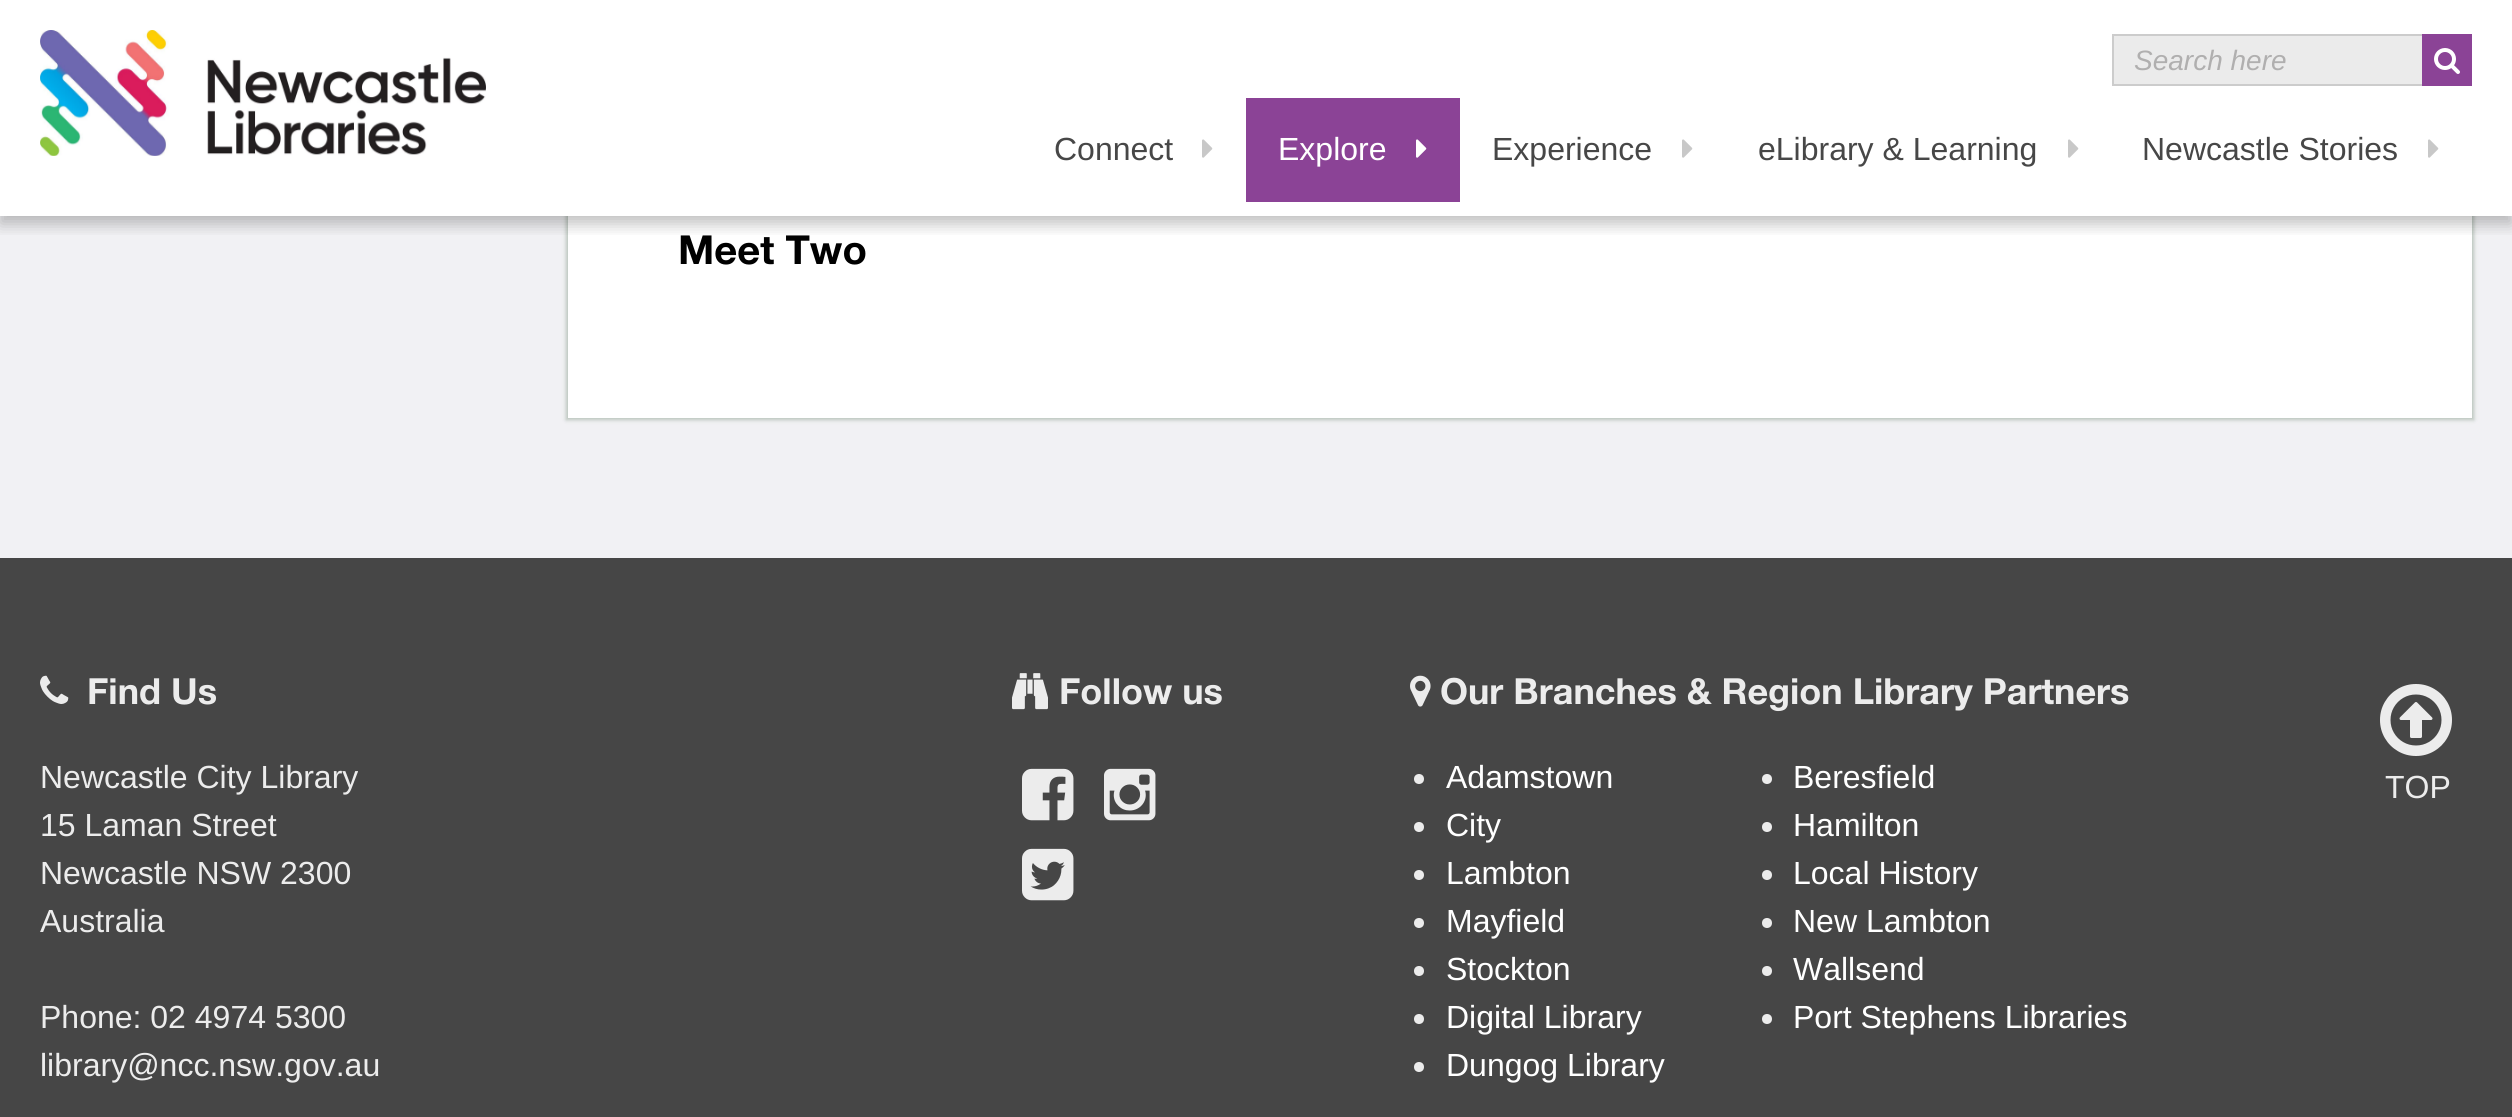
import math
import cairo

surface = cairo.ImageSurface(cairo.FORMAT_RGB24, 2512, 1117)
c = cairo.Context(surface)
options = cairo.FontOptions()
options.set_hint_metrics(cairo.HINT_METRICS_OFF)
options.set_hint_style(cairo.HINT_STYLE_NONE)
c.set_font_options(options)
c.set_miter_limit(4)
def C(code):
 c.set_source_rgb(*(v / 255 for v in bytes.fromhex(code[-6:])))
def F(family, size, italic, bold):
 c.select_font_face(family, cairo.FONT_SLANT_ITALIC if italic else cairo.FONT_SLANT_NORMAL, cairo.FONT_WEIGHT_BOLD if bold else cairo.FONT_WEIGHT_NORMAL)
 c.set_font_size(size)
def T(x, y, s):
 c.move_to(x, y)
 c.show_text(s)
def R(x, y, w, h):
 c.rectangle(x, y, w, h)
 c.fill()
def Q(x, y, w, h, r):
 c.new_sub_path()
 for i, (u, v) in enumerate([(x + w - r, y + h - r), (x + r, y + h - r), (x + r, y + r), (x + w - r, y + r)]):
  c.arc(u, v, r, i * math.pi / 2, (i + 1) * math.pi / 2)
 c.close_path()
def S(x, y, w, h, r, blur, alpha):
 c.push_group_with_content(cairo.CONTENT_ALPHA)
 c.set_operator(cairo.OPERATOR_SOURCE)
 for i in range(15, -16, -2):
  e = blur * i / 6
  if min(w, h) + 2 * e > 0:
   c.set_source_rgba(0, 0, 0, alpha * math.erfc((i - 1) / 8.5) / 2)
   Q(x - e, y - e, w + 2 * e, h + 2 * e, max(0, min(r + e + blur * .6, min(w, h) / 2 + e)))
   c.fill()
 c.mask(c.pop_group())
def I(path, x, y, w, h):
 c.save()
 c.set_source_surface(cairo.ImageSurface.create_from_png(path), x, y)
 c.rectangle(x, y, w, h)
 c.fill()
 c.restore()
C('f1f1f4')
c.paint()
C('b9c4bb')
S(566,-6,1908,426,0,2,1)
C('ffffff')
R(0,0,2512,216)
R(568,216,1904,202)
c.save()
c.rectangle(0,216,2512,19)
c.clip()
C('000000')
S(0,8,2512,216,0,8,.25)
c.restore()
I('1.png',40,30,446,126)
C('ebebeb')
R(2114,36,308,48)
c.rectangle(2113,35,358,50)
C('cccccc')
c.stroke()
F('Liberation Sans',28,1,0)
C('b0afaf')
T(2134,70,'Search here')
C('8b4396')
R(2422,34,50,52)
I('2.png',2434,48,26,26)
F('Liberation Sans',32,0,0)
C('474747')
T(1054,160,'Connect')
I('3.png',1202,139,11,19)
C('8b4396')
R(1246,98,214,104)
C('ffffff')
T(1278,160,'Explore')
I('4.png',1416,139,11,19)
C('474747')
T(1492,160,'Experience')
I('3.png',1682,139,11,19)
T(1758,160,'eLibrary & Learning')
I('3.png',2068,139,11,19)
T(2142,160,'Newcastle Stories')
I('3.png',2428,139,11,19)
F('Helvetica Neue',40,0,1)
C('000000')
T(678,264,'Meet Two')
C('464646')
R(0,558,2512,559)
I('5.png',40,675,29,29)
F('Helvetica Neue',36,0,1)
C('ececec')
T(87,704,'Find Us')
F('Liberation Sans',32,0,0)
T(40,788,'Newcastle City Library')
T(40,836,'15 Laman Street')
T(40,884,'Newcastle NSW 2300')
T(40,932,'Australia')
T(40,1028,'Phone: 02 4974 5300')
T(40,1076,'library@ncc.nsw.gov.au')
I('6.png',1012,673,36,37)
F('Helvetica Neue',36,0,1)
T(1059,704,'Follow us')
I('7.png',1022,768,52,53)
I('8.png',1104,768,52,53)
I('9.png',1022,848,52,53)
I('10.png',1410,675,21,32)
T(1440,704,'Our Branches & Region Library Partners')
c.new_path()
c.arc(1419,779,5,0,2 * math.pi)
c.fill()
F('Liberation Sans',32,0,0)
C('ffffff')
T(1446,788,'Adamstown')
C('ececec')
c.new_path()
c.arc(1767,779,5,0,2 * math.pi)
c.fill()
C('ffffff')
T(1793,788,'Beresfield')
C('ececec')
c.new_path()
c.arc(1419,827,5,0,2 * math.pi)
c.fill()
C('ffffff')
T(1446,836,'City')
C('ececec')
c.new_path()
c.arc(1767,827,5,0,2 * math.pi)
c.fill()
C('ffffff')
T(1793,836,'Hamilton')
C('ececec')
c.new_path()
c.arc(1419,875,5,0,2 * math.pi)
c.fill()
C('ffffff')
T(1446,884,'Lambton')
C('ececec')
c.new_path()
c.arc(1767,875,5,0,2 * math.pi)
c.fill()
C('ffffff')
T(1793,884,'Local History')
C('ececec')
c.new_path()
c.arc(1419,923,5,0,2 * math.pi)
c.fill()
C('ffffff')
T(1446,932,'Mayfield')
C('ececec')
c.new_path()
c.arc(1767,923,5,0,2 * math.pi)
c.fill()
C('ffffff')
T(1793,932,'New Lambton')
C('ececec')
c.new_path()
c.arc(1419,971,5,0,2 * math.pi)
c.fill()
C('ffffff')
T(1446,980,'Stockton')
C('ececec')
c.new_path()
c.arc(1767,971,5,0,2 * math.pi)
c.fill()
C('ffffff')
T(1793,980,'Wallsend')
C('ececec')
c.new_path()
c.arc(1419,1019,5,0,2 * math.pi)
c.fill()
C('ffffff')
T(1446,1028,'Digital Library')
C('ececec')
c.new_path()
c.arc(1767,1019,5,0,2 * math.pi)
c.fill()
C('ffffff')
T(1793,1028,'Port Stephens Libraries')
C('ececec')
c.new_path()
c.arc(1419,1067,5,0,2 * math.pi)
c.fill()
C('ffffff')
T(1446,1076,'Dungog Library')
I('11.png',2380,684,72,72)
C('ececec')
T(2385,798,'TOP')
surface.write_to_png('o.png')
